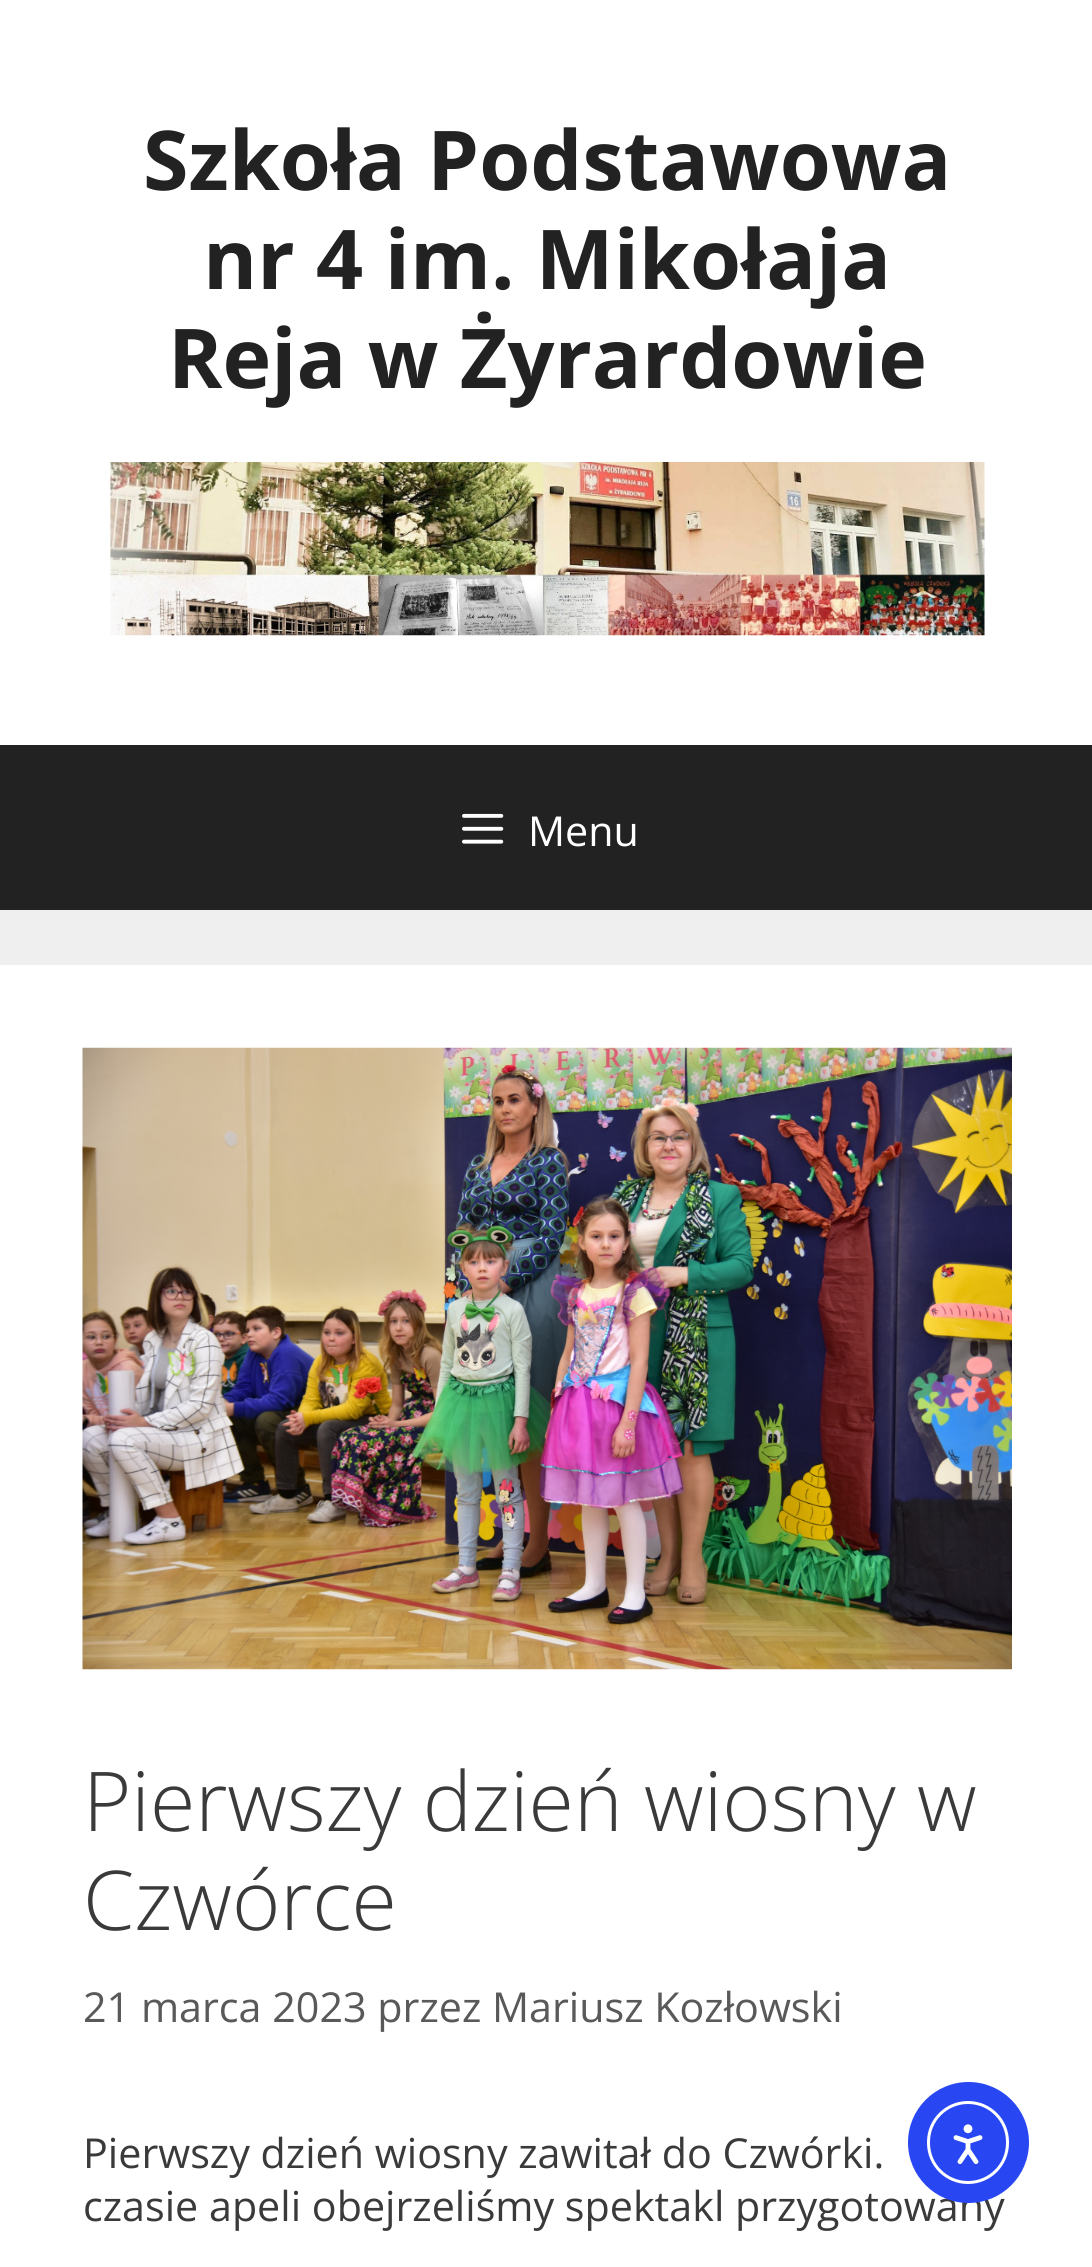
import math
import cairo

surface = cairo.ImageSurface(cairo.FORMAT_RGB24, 1092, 2267)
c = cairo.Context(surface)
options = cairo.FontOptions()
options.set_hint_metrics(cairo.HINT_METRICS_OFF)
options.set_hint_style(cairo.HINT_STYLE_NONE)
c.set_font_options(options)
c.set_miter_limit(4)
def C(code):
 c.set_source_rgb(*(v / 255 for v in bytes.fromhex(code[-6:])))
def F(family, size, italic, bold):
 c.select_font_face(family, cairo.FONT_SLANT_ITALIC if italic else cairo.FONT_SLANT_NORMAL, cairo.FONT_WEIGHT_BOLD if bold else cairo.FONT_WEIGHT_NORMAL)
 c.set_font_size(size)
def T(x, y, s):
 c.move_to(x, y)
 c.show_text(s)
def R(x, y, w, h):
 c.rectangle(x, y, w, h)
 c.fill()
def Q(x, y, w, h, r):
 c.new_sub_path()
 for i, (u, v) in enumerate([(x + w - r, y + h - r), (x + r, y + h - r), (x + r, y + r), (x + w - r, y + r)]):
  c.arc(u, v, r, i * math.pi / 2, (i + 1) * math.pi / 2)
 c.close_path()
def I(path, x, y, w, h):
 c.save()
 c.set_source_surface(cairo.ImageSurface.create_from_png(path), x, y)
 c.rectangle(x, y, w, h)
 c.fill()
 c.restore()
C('efefef')
c.paint()
C('ffffff')
R(0,0,1092,745)
F('Open Sans',82.5,0,1)
C('222222')
T(143,190,'Szkoła Podstawowa')
T(203,289,'nr 4 im. Mikołaja')
T(168,388,'Reja w Żyrardowie')
I('1.png',110,462,875,174)
R(0,745,1092,165)
I('2.png',462,813,42,31)
F('Open Sans',41.25,0,0)
C('ffffff')
T(528,846,'Menu')
R(0,965,1092,1302)
I('3.png',82,1047,930,623)
F('Open Sans Light',82.5,0,0)
C('3a3a3a')
T(83,1831,'Pierwszy dzień wiosny w')
T(83,1930,'Czwórce')
F('Open Sans',41.25,0,0)
C('595959')
T(83,2022,'21 marca 2023 przez Mariusz Kozłowski')
C('3a3a3a')
T(83,2168,'Pierwszy dzień wiosny zawitał do Czwórki.')
T(83,2221,'czasie apeli obejrzeliśmy spektakl przygotowany')
C('2847f3')
c.new_path()
c.arc(968.5,2142.5,60.5,0,2 * math.pi)
c.fill()
Q(928.5,2102.5,79,80,39.5)
C('ffffff')
c.set_line_width(3)
c.stroke()
I('4.png',953,2124,30,41)
surface.write_to_png('o.png')
